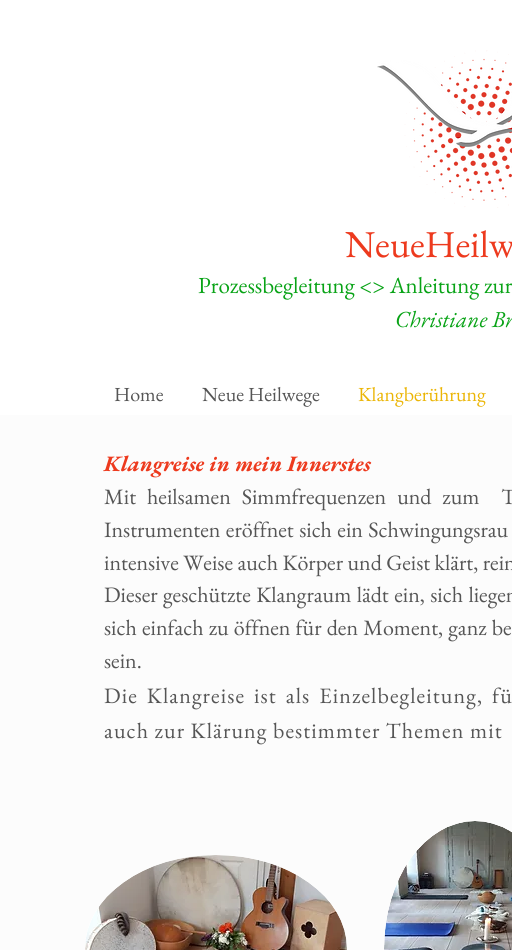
import math
import cairo

surface = cairo.ImageSurface(cairo.FORMAT_RGB24, 512, 950)
c = cairo.Context(surface)
options = cairo.FontOptions()
options.set_hint_metrics(cairo.HINT_METRICS_OFF)
options.set_hint_style(cairo.HINT_STYLE_NONE)
c.set_font_options(options)
c.set_miter_limit(4)
def C(code):
 c.set_source_rgb(*(v / 255 for v in bytes.fromhex(code[-6:])))
def F(family, size, italic, bold):
 c.select_font_face(family, cairo.FONT_SLANT_ITALIC if italic else cairo.FONT_SLANT_NORMAL, cairo.FONT_WEIGHT_BOLD if bold else cairo.FONT_WEIGHT_NORMAL)
 c.set_font_size(size)
def T(x, y, s):
 c.move_to(x, y)
 c.show_text(s)
def L(x, y, s, letter, word):
 c.move_to(x, y)
 for ch in s:
  c.show_text(ch)
  c.rel_move_to(letter + word * (ch == ' '), 0)
def R(x, y, w, h):
 c.rectangle(x, y, w, h)
 c.fill()
def I(path, x, y, w, h):
 c.save()
 c.set_source_surface(cairo.ImageSurface.create_from_png(path), x, y)
 c.rectangle(x, y, w, h)
 c.fill()
 c.restore()
C('ffffff')
c.paint()
I('1.png',377,50,135,158)
F('EB Garamond',38,0,0)
C('ed3a1e')
T(345,257,'NeueHeilw')
F('EB Garamond',23,0,0)
C('08a316')
T(198,293,'Prozessbegleitung <> Anleitung zur')
F('EB Garamond',23,1,0)
T(395,327,'Christiane Br')
F('EB Garamond',20,0,0)
C('555555')
T(114,401,'Home')
T(202,401,'Neue Heilwege')
C('ebb505')
T(358,401,'Klangberührung')
C('fcfcfc')
R(0,415,512,535)
F('EB Garamond',22,1,1)
C('ed3a1e')
T(104,471,'Klangreise in mein Innerstes')
F('EB Garamond',22,0,0)
C('555555')
L(104,504,'Mit heilsamen Simmfrequenzen und zum  T',0,6.5)
L(104,537,'Instrumenten eröffnet sich ein Schwingungsrau',0,1)
T(104,570,'intensive Weise auch Körper und Geist klärt, rein')
L(104,602,'Dieser geschützte Klangraum lädt ein, sich liegen',0,1)
L(104,635,'sich einfach zu öffnen für den Moment, ganz be',0,.75)
T(104,668,'sein.')
L(104,703,'Die Klangreise ist als Einzelbegleitung, fü',1.1,3.5)
L(104,738,'auch zur Klärung bestimmter Themen mit',1.1,0)
C('ffffff')
c.new_path()
c.move_to(216,855)
c.curve_to(288.5,855,347,897,347,948.5)
c.curve_to(347,1000,288.5,1042,216,1042)
c.curve_to(143.5,1042,85,1000,85,948.5)
c.curve_to(85,897,143.5,855,216,855)
c.close_path()
c.fill()
I('2.png',85,855,262,95)
c.new_path()
c.move_to(475,821)
c.curve_to(525.5,821,566,878,566,948.5)
c.curve_to(566,1019,525.5,1076,475,1076)
c.curve_to(424.5,1076,384,1019,384,948.5)
c.curve_to(384,878,424.5,821,475,821)
c.close_path()
c.fill()
I('3.png',384,821,128,129)
surface.write_to_png('o.png')
